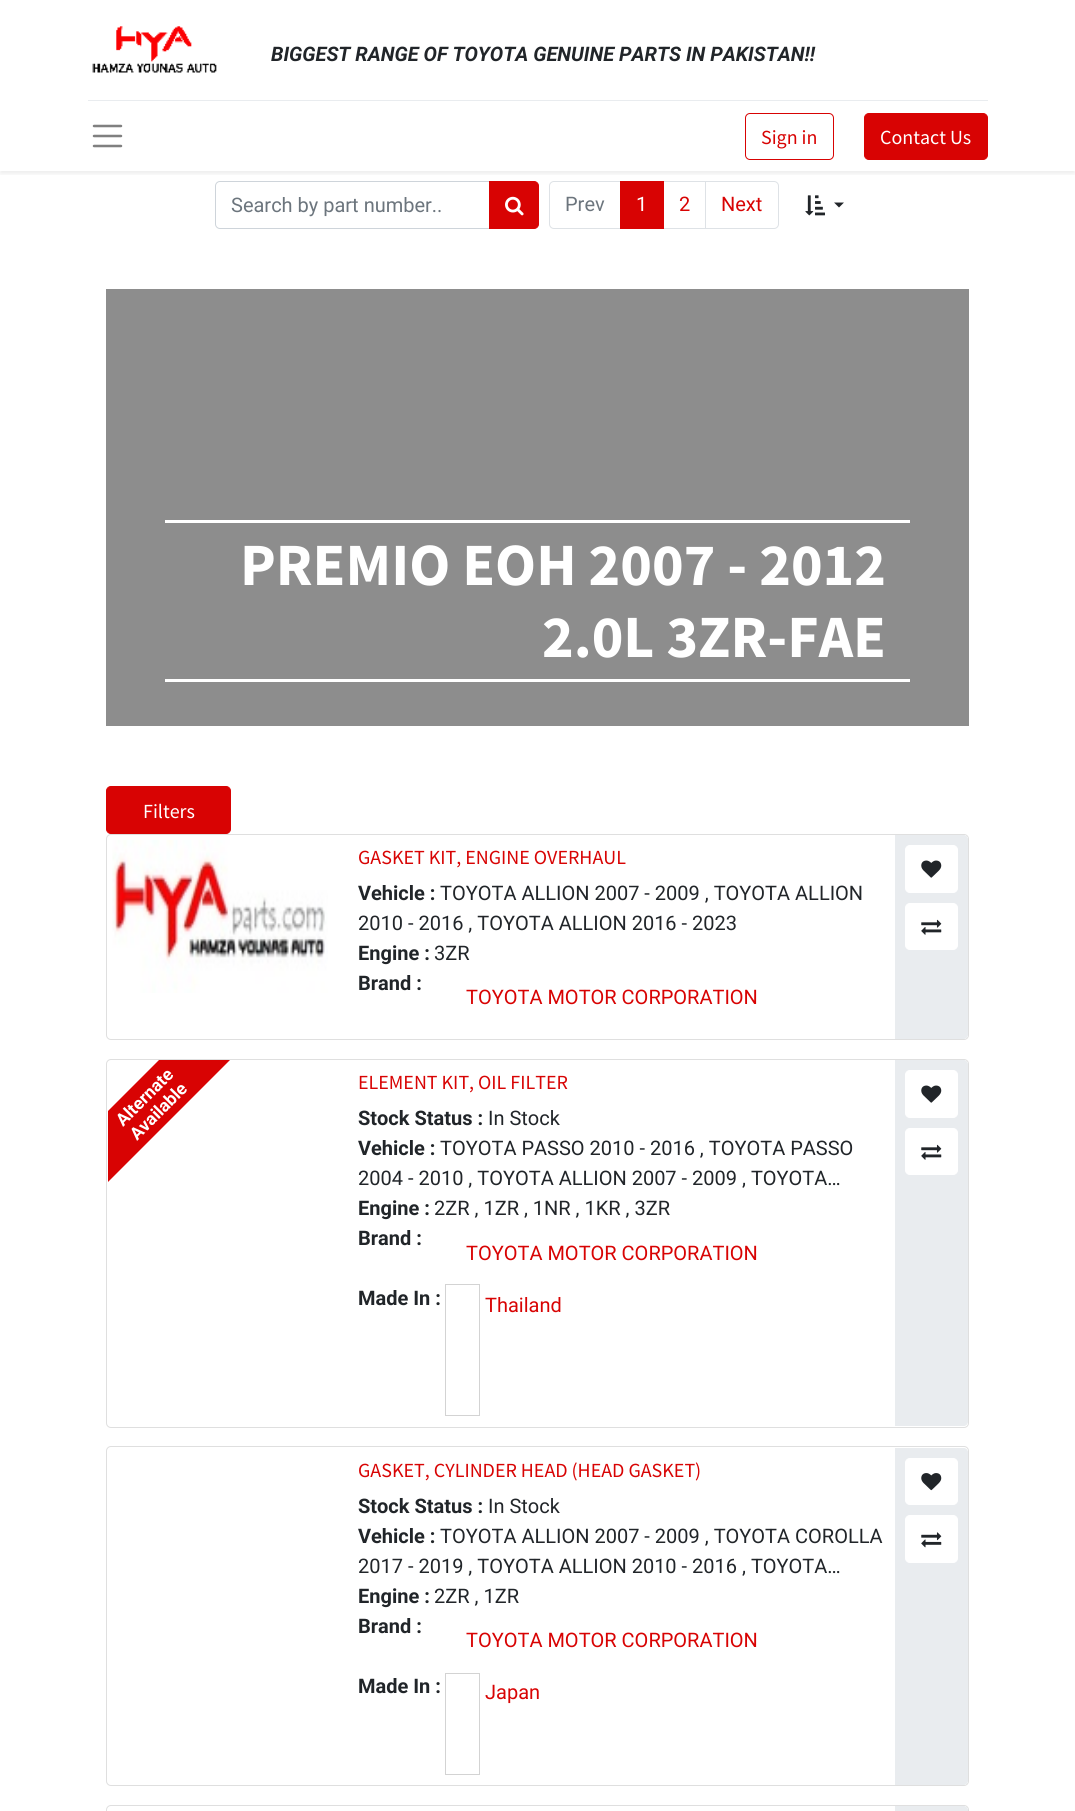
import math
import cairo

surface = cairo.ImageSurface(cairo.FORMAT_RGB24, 1075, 1811)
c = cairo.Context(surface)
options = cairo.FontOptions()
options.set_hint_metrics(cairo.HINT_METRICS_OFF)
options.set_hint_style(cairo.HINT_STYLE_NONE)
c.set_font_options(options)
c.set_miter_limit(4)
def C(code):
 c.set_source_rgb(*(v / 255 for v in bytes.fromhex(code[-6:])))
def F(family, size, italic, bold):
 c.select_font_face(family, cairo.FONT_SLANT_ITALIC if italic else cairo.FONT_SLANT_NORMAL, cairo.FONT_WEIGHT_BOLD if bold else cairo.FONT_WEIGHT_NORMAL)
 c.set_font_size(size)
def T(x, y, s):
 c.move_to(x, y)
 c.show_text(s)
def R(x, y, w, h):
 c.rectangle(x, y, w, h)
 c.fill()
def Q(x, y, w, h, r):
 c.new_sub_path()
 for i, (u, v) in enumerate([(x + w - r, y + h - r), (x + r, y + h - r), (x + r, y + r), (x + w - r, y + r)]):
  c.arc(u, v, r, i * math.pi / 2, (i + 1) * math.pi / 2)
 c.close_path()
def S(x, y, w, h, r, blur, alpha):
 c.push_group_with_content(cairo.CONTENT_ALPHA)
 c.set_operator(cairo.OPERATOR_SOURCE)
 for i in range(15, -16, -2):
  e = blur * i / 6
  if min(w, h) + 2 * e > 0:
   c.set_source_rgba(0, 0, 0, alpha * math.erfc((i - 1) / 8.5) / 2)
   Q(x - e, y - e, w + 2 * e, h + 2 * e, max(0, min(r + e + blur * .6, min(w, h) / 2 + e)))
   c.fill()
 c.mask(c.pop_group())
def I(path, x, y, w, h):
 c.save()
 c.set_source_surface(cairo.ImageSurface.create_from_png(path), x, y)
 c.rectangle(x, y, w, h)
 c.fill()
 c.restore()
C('ffffff')
c.paint()
c.new_path()
c.move_to(220,181.5)
c.line_to(489.5,181.5)
c.line_to(489.5,228.5)
c.line_to(220,228.5)
c.curve_to(217.5,228.5,215.5,226.5,215.5,224)
c.line_to(215.5,186)
c.curve_to(215.5,183.5,217.5,181.5,220,181.5)
c.close_path()
C('ced4da')
c.set_line_width(1)
c.stroke()
C('d80303')
c.new_path()
c.move_to(489.5,181.5)
c.line_to(534,181.5)
c.curve_to(536.5,181.5,538.5,183.5,538.5,186)
c.line_to(538.5,224)
c.curve_to(538.5,226.5,536.5,228.5,534,228.5)
c.line_to(489.5,228.5)
c.close_path()
c.fill_preserve()
c.stroke()
c.new_path()
c.move_to(554,181.5)
c.line_to(620.5,181.5)
c.line_to(620.5,228.5)
c.line_to(554,228.5)
c.curve_to(551.5,228.5,549.5,226.5,549.5,224)
c.line_to(549.5,186)
c.curve_to(549.5,183.5,551.5,181.5,554,181.5)
c.close_path()
C('dee2e6')
c.stroke()
c.rectangle(663.5,181.5,42,47)
c.stroke()
C('d80303')
R(620,181,44,48)
C('ffffff')
c.new_path()
c.move_to(705.5,181.5)
c.line_to(774,181.5)
c.curve_to(776.5,181.5,778.5,183.5,778.5,186)
c.line_to(778.5,224)
c.curve_to(778.5,226.5,776.5,228.5,774,228.5)
c.line_to(705.5,228.5)
c.close_path()
c.fill_preserve()
C('dee2e6')
c.stroke()
c.save()
c.rectangle(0,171,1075,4)
c.clip()
C('000000')
S(0,3,1075,171,0,2.5,.07)
c.restore()
I('1.png',92,26,125,47)
F('Roboto',20,1,1)
C('212529')
T(271,61,'BIGGEST RANGE OF TOYOTA GENUINE PARTS IN PAKISTAN!!')
C('e9ecef')
R(88,100,900,1)
c.new_path()
c.move_to(94,126)
c.line_to(121,126)
c.move_to(94,136)
c.line_to(121,136)
c.move_to(94,146)
c.line_to(121,146)
C('808080')
c.set_line_width(2.5)
c.set_line_cap(cairo.LINE_CAP_ROUND)
c.stroke()
Q(745.5,113.5,88,46,4.5)
C('d80303')
c.set_line_width(1)
c.set_line_cap(cairo.LINE_CAP_BUTT)
c.stroke()
F('Source Sans Pro',20,0,0)
T(761,144,'Sign in')
Q(864.5,113.5,123,46,4.5)
c.fill_preserve()
c.stroke()
C('ffffff')
T(880,144,'Contact Us')
F('Roboto',20,0,0)
C('6c757d')
T(231,212,'Search by part number..')
I('2.png',505,196,19,20)
T(565,211,'Prev')
C('ffffff')
T(636,211,'1')
C('d80303')
T(679,211,'2')
T(721,211,'Next')
I('3.png',805,195,20,21)
C('212529')
c.new_path()
c.move_to(834,202.5)
c.line_to(844,202.5)
c.line_to(839,207.5)
c.close_path()
c.fill()
C('8d8d8d')
R(106,289,863,437)
C('ffffff')
R(165,520,745,3)
F('Source Sans Pro',60,0,1)
T(240,585,'PREMIO EOH 2007 - 2012')
T(542,657,'2.0L 3ZR-FAE')
R(165,679,745,3)
C('d80303')
Q(106.5,786.5,124,47,4.5)
c.fill_preserve()
c.stroke()
F('Source Sans Pro',20,0,0)
C('ffffff')
T(143,818,'Filters')
Q(106.5,834.5,862,205,4.5)
C('dfdfdf')
c.stroke()
I('4.png',112,840,216,153)
c.set_source_rgba(1,1,1,0.9)
c.new_path()
c.move_to(348,835)
c.line_to(964,835)
c.curve_to(966,835,968,837,968,839)
c.line_to(968,1035)
c.curve_to(968,1037,966,1039,964,1039)
c.line_to(348,1039)
c.close_path()
c.fill()
C('d80303')
T(358,864,'GASKET KIT, ENGINE OVERHAUL')
F('Roboto',20,0,1)
C('212529')
T(358,900,'Vehicle :')
F('Roboto',20,0,0)
T(440,900,'TOYOTA ALLION 2007 - 2009 , TOYOTA ALLION')
T(358,930,'2010 - 2016 , TOYOTA ALLION 2016 - 2023')
F('Roboto',20,0,1)
T(358,960,'Engine :')
F('Roboto',20,0,0)
T(434,960,'3ZR')
F('Roboto',20,0,1)
T(358,990,'Brand :')
F('Roboto',20,0,0)
C('d80303')
T(466,1004,'TOYOTA MOTOR CORPORATION')
C('e9ecef')
c.new_path()
c.move_to(895,835)
c.line_to(964,835)
c.curve_to(966,835,968,837,968,839)
c.line_to(968,1035)
c.curve_to(968,1037,966,1039,964,1039)
c.line_to(895,1039)
c.close_path()
c.fill()
C('ffffff')
Q(905.5,845.5,52,47,4.5)
c.fill_preserve()
c.stroke()
I('5.png',921,860,21,18)
Q(905.5,903.5,52,46,4.5)
c.fill_preserve()
c.stroke()
I('6.png',921,919,21,16)
Q(106.5,1059.5,862,368,4.5)
C('dfdfdf')
c.stroke()
C('d80303')
c.new_path()
c.move_to(230,1060)
c.line_to(108,1182)
c.line_to(108,1111)
c.line_to(159,1060)
c.close_path()
c.fill()
F('Roboto',17.5,0,1)
C('ffffff')
c.save()
c.translate(123,1127)
c.rotate(-45 * math.pi / 180)
T(0,0,'Alternate')
c.restore()
c.save()
c.translate(137,1141)
c.rotate(-45 * math.pi / 180)
T(0,0,'Available')
c.restore()
c.set_source_rgba(1,1,1,0.9)
c.new_path()
c.move_to(348,1060)
c.line_to(964,1060)
c.curve_to(966,1060,968,1062,968,1064)
c.line_to(968,1422)
c.curve_to(968,1424,966,1426,964,1426)
c.line_to(348,1426)
c.close_path()
c.fill()
F('Source Sans Pro',20,0,0)
C('d80303')
T(358,1089,'ELEMENT KIT, OIL FILTER')
F('Roboto',20,0,1)
C('212529')
T(358,1125,'Stock Status :')
F('Roboto',20,0,0)
T(488,1125,'In Stock')
F('Roboto',20,0,1)
T(358,1155,'Vehicle :')
F('Roboto',20,0,0)
T(440,1155,'TOYOTA PASSO 2010 - 2016 , TOYOTA PASSO')
T(358,1185,'2004 - 2010 , TOYOTA ALLION 2007 - 2009 , TOYOTA…')
F('Roboto',20,0,1)
T(358,1215,'Engine :')
F('Roboto',20,0,0)
T(434,1215,'2ZR , 1ZR , 1NR , 1KR , 3ZR')
F('Roboto',20,0,1)
T(358,1245,'Brand :')
F('Roboto',20,0,0)
C('d80303')
T(466,1260,'TOYOTA MOTOR CORPORATION')
F('Roboto',20,0,1)
C('212529')
T(358,1305,'Made In :')
c.rectangle(445.5,1284.5,34,131)
C('d3d3d3')
c.stroke()
F('Roboto',20,0,0)
C('d80303')
T(485,1312,'Thailand')
C('e9ecef')
c.new_path()
c.move_to(895,1060)
c.line_to(964,1060)
c.curve_to(966,1060,968,1062,968,1064)
c.line_to(968,1422)
c.curve_to(968,1424,966,1426,964,1426)
c.line_to(895,1426)
c.close_path()
c.fill()
C('ffffff')
Q(905.5,1070.5,52,47,4.5)
c.fill_preserve()
c.stroke()
I('5.png',921,1085,21,18)
Q(905.5,1128.5,52,46,4.5)
c.fill_preserve()
c.stroke()
I('6.png',921,1144,21,16)
Q(106.5,1446.5,862,339,4.5)
C('dfdfdf')
c.stroke()
c.set_source_rgba(1,1,1,0.9)
c.new_path()
c.move_to(348,1448)
c.line_to(964,1448)
c.curve_to(966,1448,968,1450,968,1452)
c.line_to(968,1781)
c.curve_to(968,1783,966,1785,964,1785)
c.line_to(348,1785)
c.close_path()
c.fill()
F('Source Sans Pro',20,0,0)
C('d80303')
T(358,1477,'GASKET, CYLINDER HEAD (HEAD GASKET)')
F('Roboto',20,0,1)
C('212529')
T(358,1513,'Stock Status :')
F('Roboto',20,0,0)
T(488,1513,'In Stock')
F('Roboto',20,0,1)
T(358,1543,'Vehicle :')
F('Roboto',20,0,0)
T(440,1543,'TOYOTA ALLION 2007 - 2009 , TOYOTA COROLLA')
T(358,1573,'2017 - 2019 , TOYOTA ALLION 2010 - 2016 , TOYOTA…')
F('Roboto',20,0,1)
T(358,1603,'Engine :')
F('Roboto',20,0,0)
T(434,1603,'2ZR , 1ZR')
F('Roboto',20,0,1)
T(358,1633,'Brand :')
F('Roboto',20,0,0)
C('d80303')
T(466,1647,'TOYOTA MOTOR CORPORATION')
F('Roboto',20,0,1)
C('212529')
T(358,1693,'Made In :')
c.rectangle(445.5,1673.5,34,101)
C('d3d3d3')
c.stroke()
F('Roboto',20,0,0)
C('d80303')
T(485,1699,'Japan')
C('e9ecef')
c.new_path()
c.move_to(895,1448)
c.line_to(964,1448)
c.curve_to(966,1448,968,1450,968,1452)
c.line_to(968,1781)
c.curve_to(968,1783,966,1785,964,1785)
c.line_to(895,1785)
c.close_path()
c.fill()
C('ffffff')
Q(905.5,1458.5,52,46,4.5)
c.fill_preserve()
c.stroke()
I('7.png',921,1473,21,18)
Q(905.5,1515.5,52,47,4.5)
c.fill_preserve()
c.stroke()
I('8.png',921,1532,21,16)
Q(106.5,1805.5,862,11,4.5)
C('dfdfdf')
c.stroke()
c.set_source_rgba(1,1,1,0.9)
c.new_path()
c.move_to(348,1806)
c.line_to(964,1806)
c.curve_to(966,1806,968,1808,968,1810)
c.line_to(968,1811)
c.line_to(348,1811)
c.close_path()
c.fill()
C('e9ecef')
c.new_path()
c.move_to(895,1806)
c.line_to(964,1806)
c.curve_to(966,1806,968,1808,968,1810)
c.line_to(968,1811)
c.line_to(895,1811)
c.close_path()
c.fill()
surface.write_to_png('o.png')
